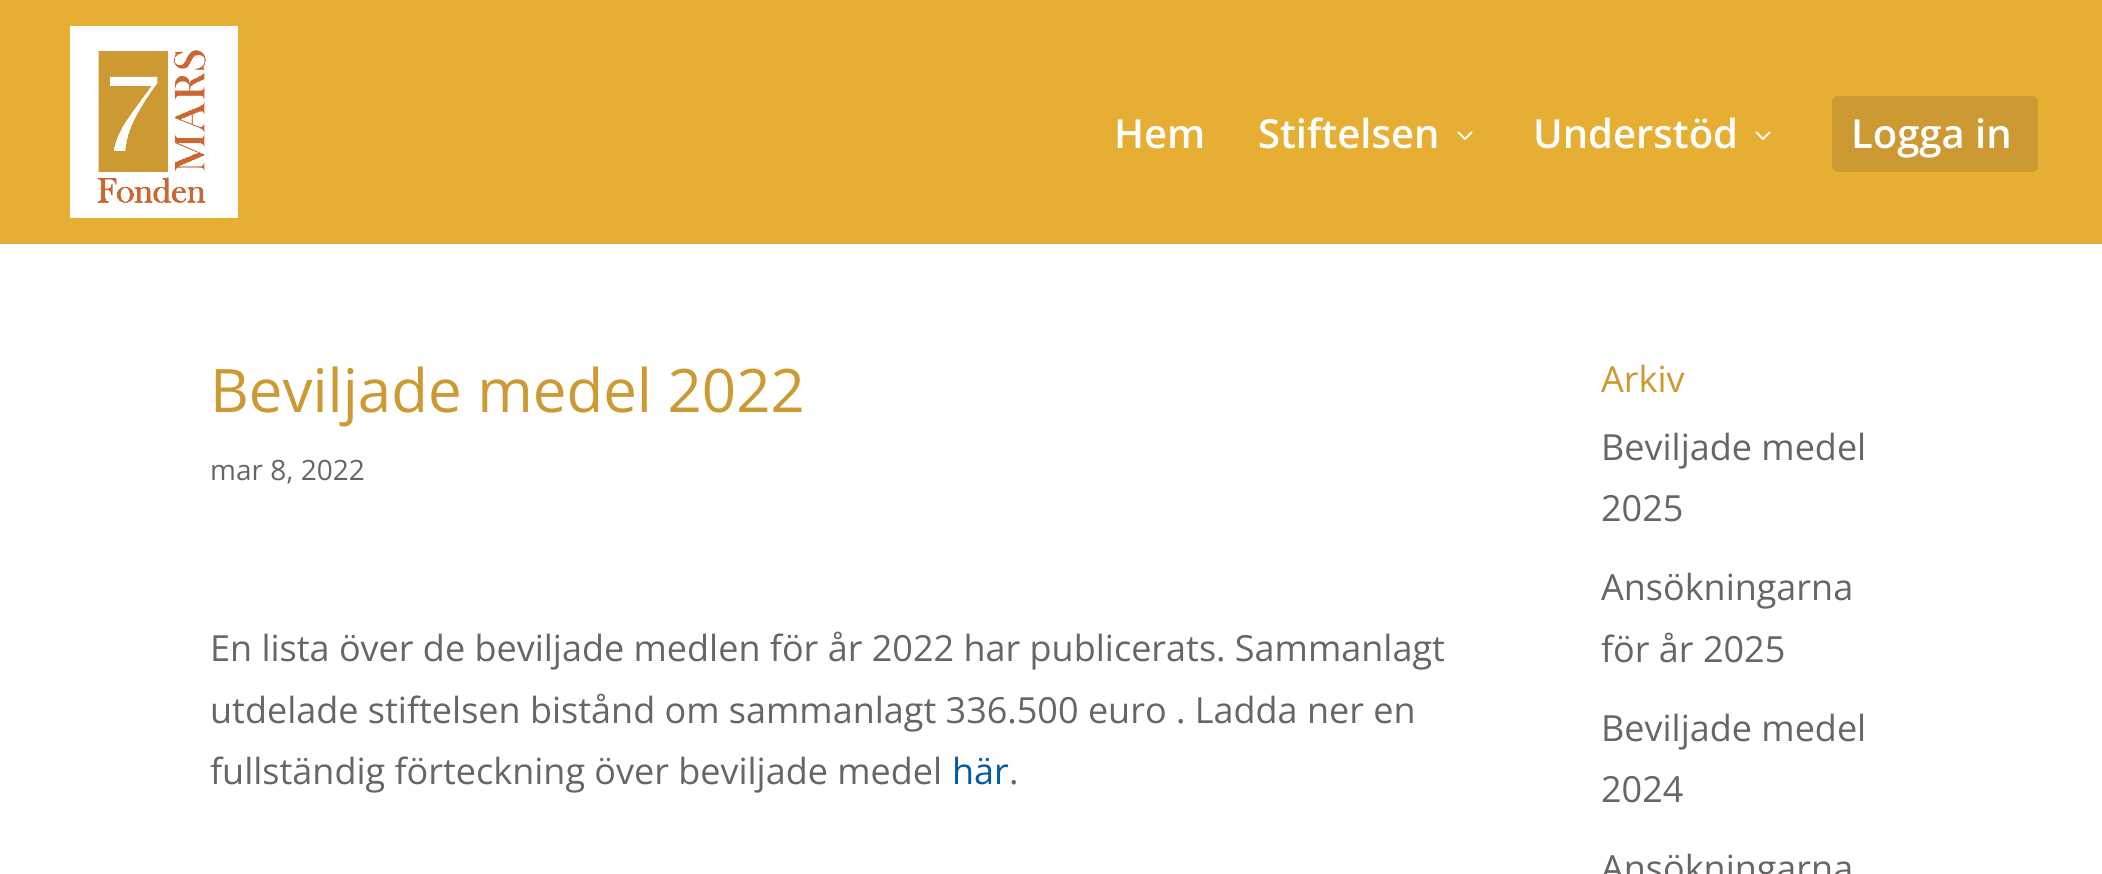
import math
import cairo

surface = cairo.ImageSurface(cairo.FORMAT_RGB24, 2102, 874)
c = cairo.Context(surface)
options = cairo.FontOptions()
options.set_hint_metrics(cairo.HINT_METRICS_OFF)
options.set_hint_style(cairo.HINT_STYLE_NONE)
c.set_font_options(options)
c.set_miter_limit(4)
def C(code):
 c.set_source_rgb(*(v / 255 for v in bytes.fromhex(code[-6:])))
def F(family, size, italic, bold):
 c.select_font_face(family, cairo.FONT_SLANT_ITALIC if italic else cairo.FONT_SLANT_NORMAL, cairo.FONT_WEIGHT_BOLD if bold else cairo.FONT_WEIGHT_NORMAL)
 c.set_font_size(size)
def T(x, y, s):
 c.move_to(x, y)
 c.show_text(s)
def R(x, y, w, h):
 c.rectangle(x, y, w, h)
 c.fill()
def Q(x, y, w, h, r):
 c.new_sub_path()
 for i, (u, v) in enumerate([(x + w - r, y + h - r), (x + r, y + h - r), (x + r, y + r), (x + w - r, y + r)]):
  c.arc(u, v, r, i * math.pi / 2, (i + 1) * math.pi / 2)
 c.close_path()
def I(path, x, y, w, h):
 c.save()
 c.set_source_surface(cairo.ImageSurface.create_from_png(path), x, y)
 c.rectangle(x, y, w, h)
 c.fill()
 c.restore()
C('ffffff')
c.paint()
C('e6ae33')
R(0,0,2102,244)
I('1.png',70,26,168,192)
F('Open Sans SemiBold',40,0,0)
C('ffffff')
T(1114,148,'Hem')
T(1258,148,'Stiftelsen')
I('2.png',1457,131,16,9)
T(1533,148,'Understöd')
I('2.png',1755,131,16,9)
C('cc9933')
Q(1832,96,206,76,6)
c.fill()
C('ffffff')
T(1851,148,'Logga in')
F('Open Sans',60,0,0)
C('cc9933')
T(210,412,'Beviljade medel 2022')
F('Open Sans',28,0,0)
C('666666')
T(210,480,'mar 8, 2022')
F('Open Sans',36,0,0)
T(210,661,'En lista över de beviljade medlen för år 2022 har publicerats. Sammanlagt')
T(210,723,'utdelade stiftelsen bistånd om sammanlagt 336.500 euro . Ladda ner en')
T(210,784,'fullständig förteckning över beviljade medel')
C('015ba5')
T(952,784,'här')
C('666666')
T(1009,784,'.')
C('cc9933')
T(1601,392,'Arkiv')
C('666666')
T(1601,460,'Beviljade medel')
T(1601,521,'2025')
T(1601,600,'Ansökningarna')
T(1601,662,'för år 2025')
T(1601,741,'Beviljade medel')
T(1601,802,'2024')
T(1601,881,'Ansökningarna')
surface.write_to_png('o.png')
